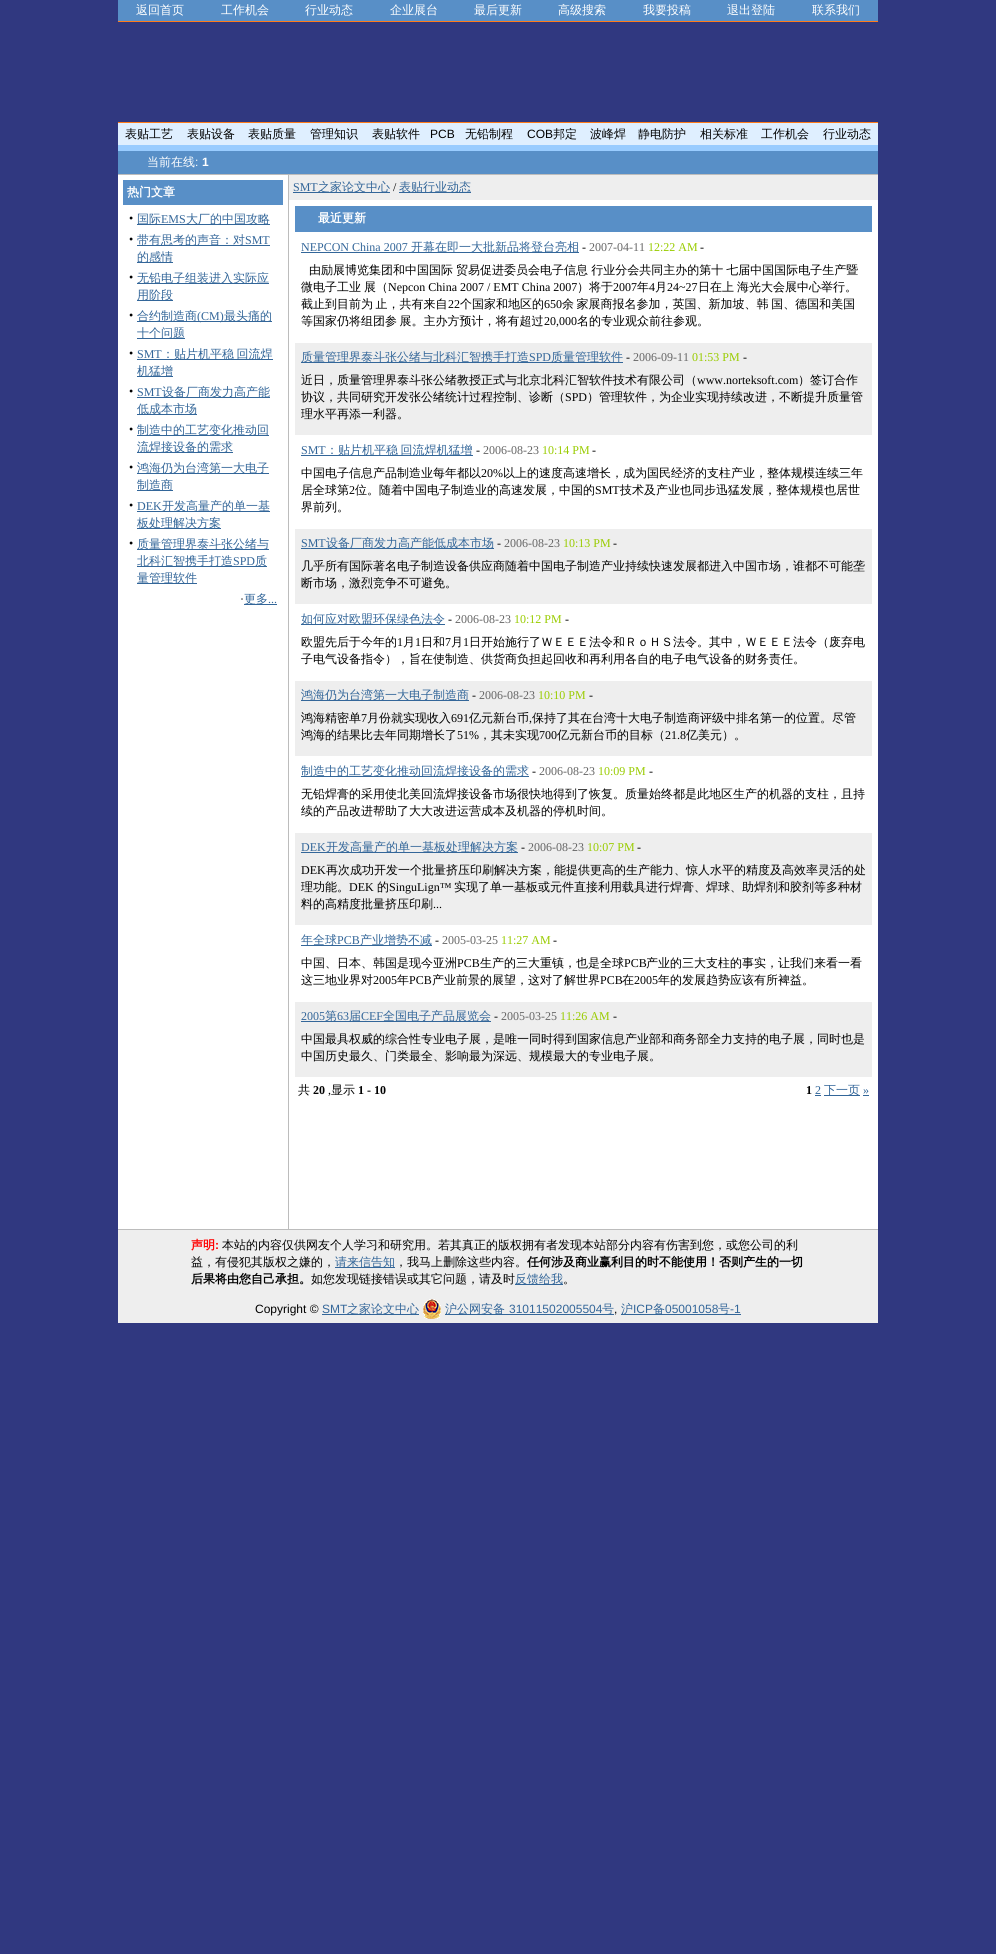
import math
import cairo

surface = cairo.ImageSurface(cairo.FORMAT_RGB24, 996, 1954)
c = cairo.Context(surface)
options = cairo.FontOptions()
options.set_hint_metrics(cairo.HINT_METRICS_OFF)
options.set_hint_style(cairo.HINT_STYLE_NONE)
c.set_font_options(options)
c.set_miter_limit(4)
def C(code):
 c.set_source_rgb(*(v / 255 for v in bytes.fromhex(code[-6:])))
def F(family, size, italic, bold):
 c.select_font_face(family, cairo.FONT_SLANT_ITALIC if italic else cairo.FONT_SLANT_NORMAL, cairo.FONT_WEIGHT_BOLD if bold else cairo.FONT_WEIGHT_NORMAL)
 c.set_font_size(size)
def T(x, y, s):
 c.move_to(x, y)
 c.show_text(s)
def L(x, y, s, letter, word):
 c.move_to(x, y)
 for ch in s:
  c.show_text(ch)
  c.rel_move_to(letter + word * (ch == ' '), 0)
def R(x, y, w, h):
 c.rectangle(x, y, w, h)
 c.fill()
def I(path, x, y, w, h):
 c.save()
 c.set_source_surface(cairo.ImageSurface.create_from_png(path), x, y)
 c.rectangle(x, y, w, h)
 c.fill()
 c.restore()
C('303880')
c.paint()
C('588fc7')
R(118,0,760,21)
F('WenQuanYi Zen Hei Medium',12,0,0)
C('ffffff')
T(136,14,'返回首页')
T(221,14,'工作机会')
T(305,14,'行业动态')
T(390,14,'企业展台')
T(474,14,'最后更新')
T(558,14,'高级搜索')
T(643,14,'我要投稿')
T(727,14,'退出登陆')
T(812,14,'联系我们')
C('ff7b1a')
R(118,21,760,1)
R(118,122,760,1)
C('dfefff')
R(118,123,760,22)
C('000000')
T(125,138,'表贴工艺')
T(187,138,'表贴设备')
T(248,138,'表贴质量')
T(310,138,'管理知识')
T(372,138,'表贴软件')
F('Liberation Sans',12,0,0)
T(430,138,'PCB')
F('WenQuanYi Zen Hei Medium',12,0,0)
T(465,138,'无铅制程')
F('Liberation Sans',12,0,0)
T(527,138,'COB')
F('WenQuanYi Zen Hei Medium',12,0,0)
T(553,138,'邦定')
T(590,138,'波峰焊')
T(638,138,'静电防护')
T(700,138,'相关标准')
T(761,138,'工作机会')
T(823,138,'行业动态')
C('588fc7')
R(118,151,760,23)
C('99ccff')
R(118,145,760,6)
C('ffffff')
T(147,166,'当前在线')
F('Liberation Sans',12,0,0)
T(195,166,':')
F('Liberation Sans',12,0,1)
T(202,166,'1')
R(118,175,760,1054)
C('bcbcbc')
R(118,174,760,1)
C('588fc7')
R(123,180,160,25)
F('WenQuanYi Zen Hei',12,0,1)
C('ffffff')
T(127,196,'热门文章')
F('Liberation Serif',12,0,0)
C('000000')
T(129,222,'•')
C('336699')
R(137,224,133,1)
F('WenQuanYi Zen Hei Medium',12,0,0)
T(137,223,'国际')
F('Liberation Serif',12,0,0)
T(161,223,'EMS')
F('WenQuanYi Zen Hei Medium',12,0,0)
T(186,223,'大厂的中国攻略')
F('Liberation Serif',12,0,0)
C('000000')
T(129,243,'•')
C('336699')
R(137,245,133,1)
F('WenQuanYi Zen Hei Medium',12,0,0)
T(137,244,'带有思考的声音：对')
F('Liberation Serif',12,0,0)
T(245,244,'SMT')
R(137,262,36,1)
F('WenQuanYi Zen Hei Medium',12,0,0)
T(137,261,'的感情')
F('Liberation Serif',12,0,0)
C('000000')
T(129,281,'•')
C('336699')
R(137,283,132,1)
F('WenQuanYi Zen Hei Medium',12,0,0)
T(137,282,'无铅电子组装进入实际应')
R(137,300,36,1)
T(137,299,'用阶段')
F('Liberation Serif',12,0,0)
C('000000')
T(129,319,'•')
C('336699')
R(137,321,135,1)
F('WenQuanYi Zen Hei Medium',12,0,0)
T(137,320,'合约制造商')
F('Liberation Serif',12,0,0)
T(197,320,'(CM)')
F('WenQuanYi Zen Hei Medium',12,0,0)
T(224,320,'最头痛的')
R(137,338,48,1)
T(137,337,'十个问题')
F('Liberation Serif',12,0,0)
C('000000')
T(129,357,'•')
C('336699')
T(137,358,'SMT')
R(137,359,136,1)
F('WenQuanYi Zen Hei Medium',12,0,0)
L(162,358,'：贴片机平稳 回流焊',0,-1)
R(137,376,36,1)
T(137,375,'机猛增')
F('Liberation Serif',12,0,0)
C('000000')
T(129,395,'•')
C('336699')
T(137,396,'SMT')
R(137,397,133,1)
F('WenQuanYi Zen Hei Medium',12,0,0)
T(162,396,'设备厂商发力高产能')
R(137,414,60,1)
T(137,413,'低成本市场')
F('Liberation Serif',12,0,0)
C('000000')
T(129,433,'•')
C('336699')
R(137,435,132,1)
F('WenQuanYi Zen Hei Medium',12,0,0)
T(137,434,'制造中的工艺变化推动回')
R(137,452,96,1)
T(137,451,'流焊接设备的需求')
F('Liberation Serif',12,0,0)
C('000000')
T(129,471,'•')
C('336699')
R(137,473,132,1)
F('WenQuanYi Zen Hei Medium',12,0,0)
T(137,472,'鸿海仍为台湾第一大电子')
R(137,490,36,1)
T(137,489,'制造商')
F('Liberation Serif',12,0,0)
C('000000')
T(129,509,'•')
C('336699')
T(137,510,'DEK')
R(137,511,133,1)
F('WenQuanYi Zen Hei Medium',12,0,0)
T(162,510,'开发高量产的单一基')
R(137,528,84,1)
T(137,527,'板处理解决方案')
F('Liberation Serif',12,0,0)
C('000000')
T(129,547,'•')
C('336699')
R(137,549,132,1)
F('WenQuanYi Zen Hei Medium',12,0,0)
T(137,548,'质量管理界泰斗张公绪与')
R(137,566,130,1)
T(137,565,'北科汇智携手打造')
F('Liberation Serif',12,0,0)
T(233,565,'SPD')
F('WenQuanYi Zen Hei Medium',12,0,0)
T(255,565,'质')
R(137,583,60,1)
T(137,582,'量管理软件')
F('Liberation Serif',12,0,0)
C('000000')
T(240,603,'·')
C('336699')
R(244,604,33,1)
F('WenQuanYi Zen Hei Medium',12,0,0)
T(244,603,'更多')
F('Liberation Serif',12,0,0)
T(268,603,'...')
C('bcbcbc')
R(288,175,1,1054)
C('eeeeee')
R(289,175,589,25)
C('336699')
T(293,191,'SMT')
R(293,192,97,1)
F('WenQuanYi Zen Hei Medium',12,0,0)
T(318,191,'之家论文中心')
F('Liberation Serif',12,0,0)
C('000000')
T(393,191,'/')
C('336699')
R(399,192,72,1)
F('WenQuanYi Zen Hei Medium',12,0,0)
T(399,191,'表贴行业动态')
C('588fc7')
R(295,206,577,26)
F('WenQuanYi Zen Hei',12,0,1)
C('ffffff')
T(318,222,'最近更新')
F('Liberation Serif',12,0,0)
C('336699')
T(301,251,'NEPCON China 2007')
R(301,252,278,1)
F('WenQuanYi Zen Hei Medium',12,0,0)
T(411,251,'开幕在即一大批新品将登台亮相')
F('Liberation Serif',12,0,0)
C('000000')
T(582,251,'-')
C('666666')
T(589,251,'2007-04-11')
C('99cc00')
T(648,251,'12:22 AM')
C('000000')
T(700,251,'-')
F('WenQuanYi Zen Hei Medium',12,0,0)
L(309,274,'由励展博览集团和中国国际 贸易促进委员会电子信息 行业分会共同主办的第十 七届中国国际电子生产暨',0,-.5)
T(301,291,'微电子工业')
T(364,291,'展（')
F('Liberation Serif',12,0,0)
T(388,291,'Nepcon China 2007 / EMT China 2007')
F('WenQuanYi Zen Hei Medium',12,0,0)
T(577,291,'）将于')
F('Liberation Serif',12,0,0)
T(613,291,'2007')
F('WenQuanYi Zen Hei Medium',12,0,0)
T(637,291,'年')
F('Liberation Serif',12,0,0)
T(649,291,'4')
F('WenQuanYi Zen Hei Medium',12,0,0)
T(655,291,'月')
F('Liberation Serif',12,0,0)
T(667,291,'24~27')
F('WenQuanYi Zen Hei Medium',12,0,0)
T(698,291,'日在上')
T(737,291,'海光大会展中心举行。')
L(301,308,'截止到目前为 止，共有来自',0,-1)
F('Liberation Serif',12,0,0)
T(448,308,'22')
F('WenQuanYi Zen Hei Medium',12,0,0)
T(460,308,'个国家和地区的')
F('Liberation Serif',12,0,0)
T(544,308,'650')
F('WenQuanYi Zen Hei Medium',12,0,0)
L(562,308,'余 家展商报名参加，英国、新加坡、韩 国、德国和美国',0,-1)
L(301,325,'等国家仍将组团参 展。主办方预计，将有超过',0,-1)
F('Liberation Serif',12,0,0)
T(544,325,'20,000')
F('WenQuanYi Zen Hei Medium',12,0,0)
T(577,325,'名的专业观众前往参观。')
C('eeeeee')
R(295,343,577,92)
C('336699')
R(301,362,322,1)
T(301,361,'质量管理界泰斗张公绪与北科汇智携手打造')
F('Liberation Serif',12,0,0)
T(529,361,'SPD')
F('WenQuanYi Zen Hei Medium',12,0,0)
T(551,361,'质量管理软件')
F('Liberation Serif',12,0,0)
C('000000')
T(626,361,'-')
C('666666')
T(633,361,'2006-09-11')
C('99cc00')
T(692,361,'01:53 PM')
C('000000')
T(743,361,'-')
F('WenQuanYi Zen Hei Medium',12,0,0)
T(301,384,'近日，质量管理界泰斗张公绪教授正式与北京北科汇智软件技术有限公司（')
F('Liberation Serif',12,0,0)
T(697,384,'www.norteksoft.com')
F('WenQuanYi Zen Hei Medium',12,0,0)
T(798,384,'）签订合作')
T(301,401,'协议，共同研究开发张公绪统计过程控制、诊断（')
F('Liberation Serif',12,0,0)
T(565,401,'SPD')
F('WenQuanYi Zen Hei Medium',12,0,0)
T(587,401,'）管理软件，为企业实现持续改进，不断提升质量管')
T(301,418,'理水平再添一利器。')
F('Liberation Serif',12,0,0)
C('336699')
T(301,454,'SMT')
R(301,455,172,1)
F('WenQuanYi Zen Hei Medium',12,0,0)
L(326,454,'：贴片机平稳 回流焊机猛增',0,-1)
F('Liberation Serif',12,0,0)
C('000000')
T(476,454,'-')
C('666666')
T(483,454,'2006-08-23')
C('99cc00')
T(542,454,'10:14 PM')
C('000000')
T(592,454,'-')
F('WenQuanYi Zen Hei Medium',12,0,0)
T(301,477,'中国电子信息产品制造业每年都以')
F('Liberation Serif',12,0,0)
T(481,477,'20%')
F('WenQuanYi Zen Hei Medium',12,0,0)
T(503,477,'以上的速度高速增长，成为国民经济的支柱产业，整体规模连续三年')
T(301,494,'居全球第')
F('Liberation Serif',12,0,0)
T(349,494,'2')
F('WenQuanYi Zen Hei Medium',12,0,0)
T(355,494,'位。随着中国电子制造业的高速发展，中国的')
F('Liberation Serif',12,0,0)
T(595,494,'SMT')
F('WenQuanYi Zen Hei Medium',12,0,0)
T(620,494,'技术及产业也同步迅猛发展，整体规模也居世')
T(301,511,'界前列。')
C('eeeeee')
R(295,529,577,75)
F('Liberation Serif',12,0,0)
C('336699')
T(301,547,'SMT')
R(301,548,193,1)
F('WenQuanYi Zen Hei Medium',12,0,0)
T(326,547,'设备厂商发力高产能低成本市场')
F('Liberation Serif',12,0,0)
C('000000')
T(497,547,'-')
C('666666')
T(504,547,'2006-08-23')
C('99cc00')
T(563,547,'10:13 PM')
C('000000')
T(613,547,'-')
F('WenQuanYi Zen Hei Medium',12,0,0)
T(301,570,'几乎所有国际著名电子制造设备供应商随着中国电子制造产业持续快速发展都进入中国市场，谁都不可能垄')
T(301,587,'断市场，激烈竞争不可避免。')
C('336699')
R(301,624,144,1)
T(301,623,'如何应对欧盟环保绿色法令')
F('Liberation Serif',12,0,0)
C('000000')
T(448,623,'-')
C('666666')
T(455,623,'2006-08-23')
C('99cc00')
T(514,623,'10:12 PM')
C('000000')
T(565,623,'-')
F('WenQuanYi Zen Hei Medium',12,0,0)
T(301,646,'欧盟先后于今年的')
F('Liberation Serif',12,0,0)
T(397,646,'1')
F('WenQuanYi Zen Hei Medium',12,0,0)
T(403,646,'月')
F('Liberation Serif',12,0,0)
T(415,646,'1')
F('WenQuanYi Zen Hei Medium',12,0,0)
T(421,646,'日和')
F('Liberation Serif',12,0,0)
T(445,646,'7')
F('WenQuanYi Zen Hei Medium',12,0,0)
T(451,646,'月')
F('Liberation Serif',12,0,0)
T(463,646,'1')
F('WenQuanYi Zen Hei Medium',12,0,0)
T(469,646,'日开始施行了ＷＥＥＥ法令和ＲｏＨＳ法令。其中，ＷＥＥＥ法令（废弃电')
T(301,663,'子电气设备指令），旨在使制造、供货商负担起回收和再利用各自的电子电气设备的财务责任。')
C('eeeeee')
R(295,681,577,75)
C('336699')
R(301,700,168,1)
T(301,699,'鸿海仍为台湾第一大电子制造商')
F('Liberation Serif',12,0,0)
C('000000')
T(472,699,'-')
C('666666')
T(479,699,'2006-08-23')
C('99cc00')
T(538,699,'10:10 PM')
C('000000')
T(589,699,'-')
F('WenQuanYi Zen Hei Medium',12,0,0)
T(301,722,'鸿海精密单')
F('Liberation Serif',12,0,0)
T(361,722,'7')
F('WenQuanYi Zen Hei Medium',12,0,0)
T(367,722,'月份就实现收入')
F('Liberation Serif',12,0,0)
T(451,722,'691')
F('WenQuanYi Zen Hei Medium',12,0,0)
T(469,722,'亿元新台币')
F('Liberation Serif',12,0,0)
T(529,722,',')
F('WenQuanYi Zen Hei Medium',12,0,0)
T(532,722,'保持了其在台湾十大电子制造商评级中排名第一的位置。尽管')
T(301,739,'鸿海的结果比去年同期增长了')
F('Liberation Serif',12,0,0)
T(457,739,'51%')
F('WenQuanYi Zen Hei Medium',12,0,0)
T(479,739,'，其未实现')
F('Liberation Serif',12,0,0)
T(539,739,'700')
F('WenQuanYi Zen Hei Medium',12,0,0)
T(557,739,'亿元新台币的目标（')
F('Liberation Serif',12,0,0)
T(665,739,'21.8')
F('WenQuanYi Zen Hei Medium',12,0,0)
T(686,739,'亿美元）。')
C('336699')
R(301,776,228,1)
T(301,775,'制造中的工艺变化推动回流焊接设备的需求')
F('Liberation Serif',12,0,0)
C('000000')
T(532,775,'-')
C('666666')
T(539,775,'2006-08-23')
C('99cc00')
T(598,775,'10:09 PM')
C('000000')
T(649,775,'-')
F('WenQuanYi Zen Hei Medium',12,0,0)
T(301,798,'无铅焊膏的采用使北美回流焊接设备市场很快地得到了恢复。质量始终都是此地区生产的机器的支柱，且持')
T(301,815,'续的产品改进帮助了大大改进运营成本及机器的停机时间。')
C('eeeeee')
R(295,833,577,92)
F('Liberation Serif',12,0,0)
C('336699')
T(301,851,'DEK')
R(301,852,217,1)
F('WenQuanYi Zen Hei Medium',12,0,0)
T(326,851,'开发高量产的单一基板处理解决方案')
F('Liberation Serif',12,0,0)
C('000000')
T(521,851,'-')
C('666666')
T(528,851,'2006-08-23')
C('99cc00')
T(587,851,'10:07 PM')
C('000000')
T(637,851,'-')
T(301,874,'DEK')
F('WenQuanYi Zen Hei Medium',12,0,0)
T(326,874,'再次成功开发一个批量挤压印刷解决方案，能提供更高的生产能力、惊人水平的精度及高效率灵活的处')
T(301,891,'理功能。')
F('Liberation Serif',12,0,0)
T(349,891,'DEK')
F('WenQuanYi Zen Hei Medium',12,0,0)
T(377,891,'的')
F('Liberation Serif',12,0,0)
T(389,891,'SinguLign™')
F('WenQuanYi Zen Hei Medium',12,0,0)
T(454,891,'实现了单一基板或元件直接利用载具进行焊膏、焊球、助焊剂和胶剂等多种材')
T(301,908,'料的高精度批量挤压印刷')
F('Liberation Serif',12,0,0)
T(433,908,'...')
C('336699')
R(301,945,131,1)
F('WenQuanYi Zen Hei Medium',12,0,0)
T(301,944,'年全球')
F('Liberation Serif',12,0,0)
T(337,944,'PCB')
F('WenQuanYi Zen Hei Medium',12,0,0)
T(360,944,'产业增势不减')
F('Liberation Serif',12,0,0)
C('000000')
T(435,944,'-')
C('666666')
T(442,944,'2005-03-25')
C('99cc00')
T(501,944,'11:27 AM')
C('000000')
T(553,944,'-')
F('WenQuanYi Zen Hei Medium',12,0,0)
T(301,967,'中国、日本、韩国是现今亚洲')
F('Liberation Serif',12,0,0)
T(457,967,'PCB')
F('WenQuanYi Zen Hei Medium',12,0,0)
T(480,967,'生产的三大重镇，也是全球')
F('Liberation Serif',12,0,0)
T(624,967,'PCB')
F('WenQuanYi Zen Hei Medium',12,0,0)
T(646,967,'产业的三大支柱的事实，让我们来看一看')
T(301,984,'这三地业界对')
F('Liberation Serif',12,0,0)
T(373,984,'2005')
F('WenQuanYi Zen Hei Medium',12,0,0)
T(397,984,'年')
F('Liberation Serif',12,0,0)
T(409,984,'PCB')
F('WenQuanYi Zen Hei Medium',12,0,0)
T(432,984,'产业前景的展望，这对了解世界')
F('Liberation Serif',12,0,0)
T(600,984,'PCB')
F('WenQuanYi Zen Hei Medium',12,0,0)
T(622,984,'在')
F('Liberation Serif',12,0,0)
T(634,984,'2005')
F('WenQuanYi Zen Hei Medium',12,0,0)
T(658,984,'年的发展趋势应该有所裨益。')
C('eeeeee')
R(295,1002,577,75)
F('Liberation Serif',12,0,0)
C('336699')
T(301,1020,'2005')
R(301,1021,190,1)
F('WenQuanYi Zen Hei Medium',12,0,0)
T(325,1020,'第')
F('Liberation Serif',12,0,0)
T(337,1020,'63')
F('WenQuanYi Zen Hei Medium',12,0,0)
T(349,1020,'届')
F('Liberation Serif',12,0,0)
T(361,1020,'CEF')
F('WenQuanYi Zen Hei Medium',12,0,0)
T(383,1020,'全国电子产品展览会')
F('Liberation Serif',12,0,0)
C('000000')
T(494,1020,'-')
C('666666')
T(501,1020,'2005-03-25')
C('99cc00')
T(560,1020,'11:26 AM')
C('000000')
T(613,1020,'-')
F('WenQuanYi Zen Hei Medium',12,0,0)
T(301,1043,'中国最具权威的综合性专业电子展，是唯一同时得到国家信息产业部和商务部全力支持的电子展，同时也是')
T(301,1060,'中国历史最久、门类最全、影响最为深远、规模最大的专业电子展。')
T(298,1094,'共')
F('Liberation Serif',12,0,1)
T(313,1094,'20')
F('Liberation Serif',12,0,0)
T(328,1094,',')
F('WenQuanYi Zen Hei Medium',12,0,0)
T(331,1094,'显示')
F('Liberation Serif',12,0,1)
T(358,1094,'1 - 10')
T(806,1094,'1')
F('Liberation Serif',12,0,0)
C('336699')
T(815,1094,'2')
R(815,1095,6,1)
R(824,1095,36,1)
F('WenQuanYi Zen Hei Medium',12,0,0)
T(824,1094,'下一页')
F('Liberation Serif',12,0,0)
T(863,1094,'»')
R(863,1095,6,1)
C('bcbcbc')
R(118,1229,760,1)
C('eeeeee')
R(118,1230,760,93)
F('WenQuanYi Zen Hei',12,0,1)
C('ff0000')
T(191,1249,'声明')
F('Liberation Sans',12,0,1)
T(215,1249,':')
F('WenQuanYi Zen Hei Medium',12,0,0)
C('000000')
T(222,1249,'本站的内容仅供网友个人学习和研究用。若其真正的版权拥有者发现本站部分内容有伤害到您，或您公司的利')
T(191,1266,'益，有侵犯其版权之嫌的，')
C('336699')
R(335,1267,60,1)
T(335,1266,'请来信告知')
C('000000')
T(395,1266,'，我马上删除这些内容。')
F('WenQuanYi Zen Hei',12,0,1)
T(527,1266,'任何涉及商业赢利目的时不能使用！否则产生的一切')
T(191,1283,'后果将由您自己承担。')
F('WenQuanYi Zen Hei Medium',12,0,0)
T(311,1283,'如您发现链接错误或其它问题，请及时')
C('336699')
R(515,1284,48,1)
T(515,1283,'反馈给我')
C('000000')
T(563,1283,'。')
F('Liberation Sans',12,0,0)
T(255,1313,'Copyright ©')
C('336699')
T(322,1313,'SMT')
R(322,1314,97,1)
F('WenQuanYi Zen Hei Medium',12,0,0)
T(347,1313,'之家论文中心')
I('1.png',423,1299,18,20)
R(445,1314,169,1)
T(445,1313,'沪公网安备')
F('Liberation Sans',12,0,0)
T(509,1313,'31011502005504')
F('WenQuanYi Zen Hei Medium',12,0,0)
T(602,1313,'号')
F('Liberation Sans',12,0,0)
C('000000')
T(614,1313,',')
C('336699')
R(621,1314,120,1)
F('WenQuanYi Zen Hei Medium',12,0,0)
T(621,1313,'沪')
F('Liberation Sans',12,0,0)
T(633,1313,'ICP')
F('WenQuanYi Zen Hei Medium',12,0,0)
T(653,1313,'备')
F('Liberation Sans',12,0,0)
T(665,1313,'05001058')
F('WenQuanYi Zen Hei Medium',12,0,0)
T(718,1313,'号')
F('Liberation Sans',12,0,0)
T(730,1313,'-1')
surface.write_to_png('o.png')
